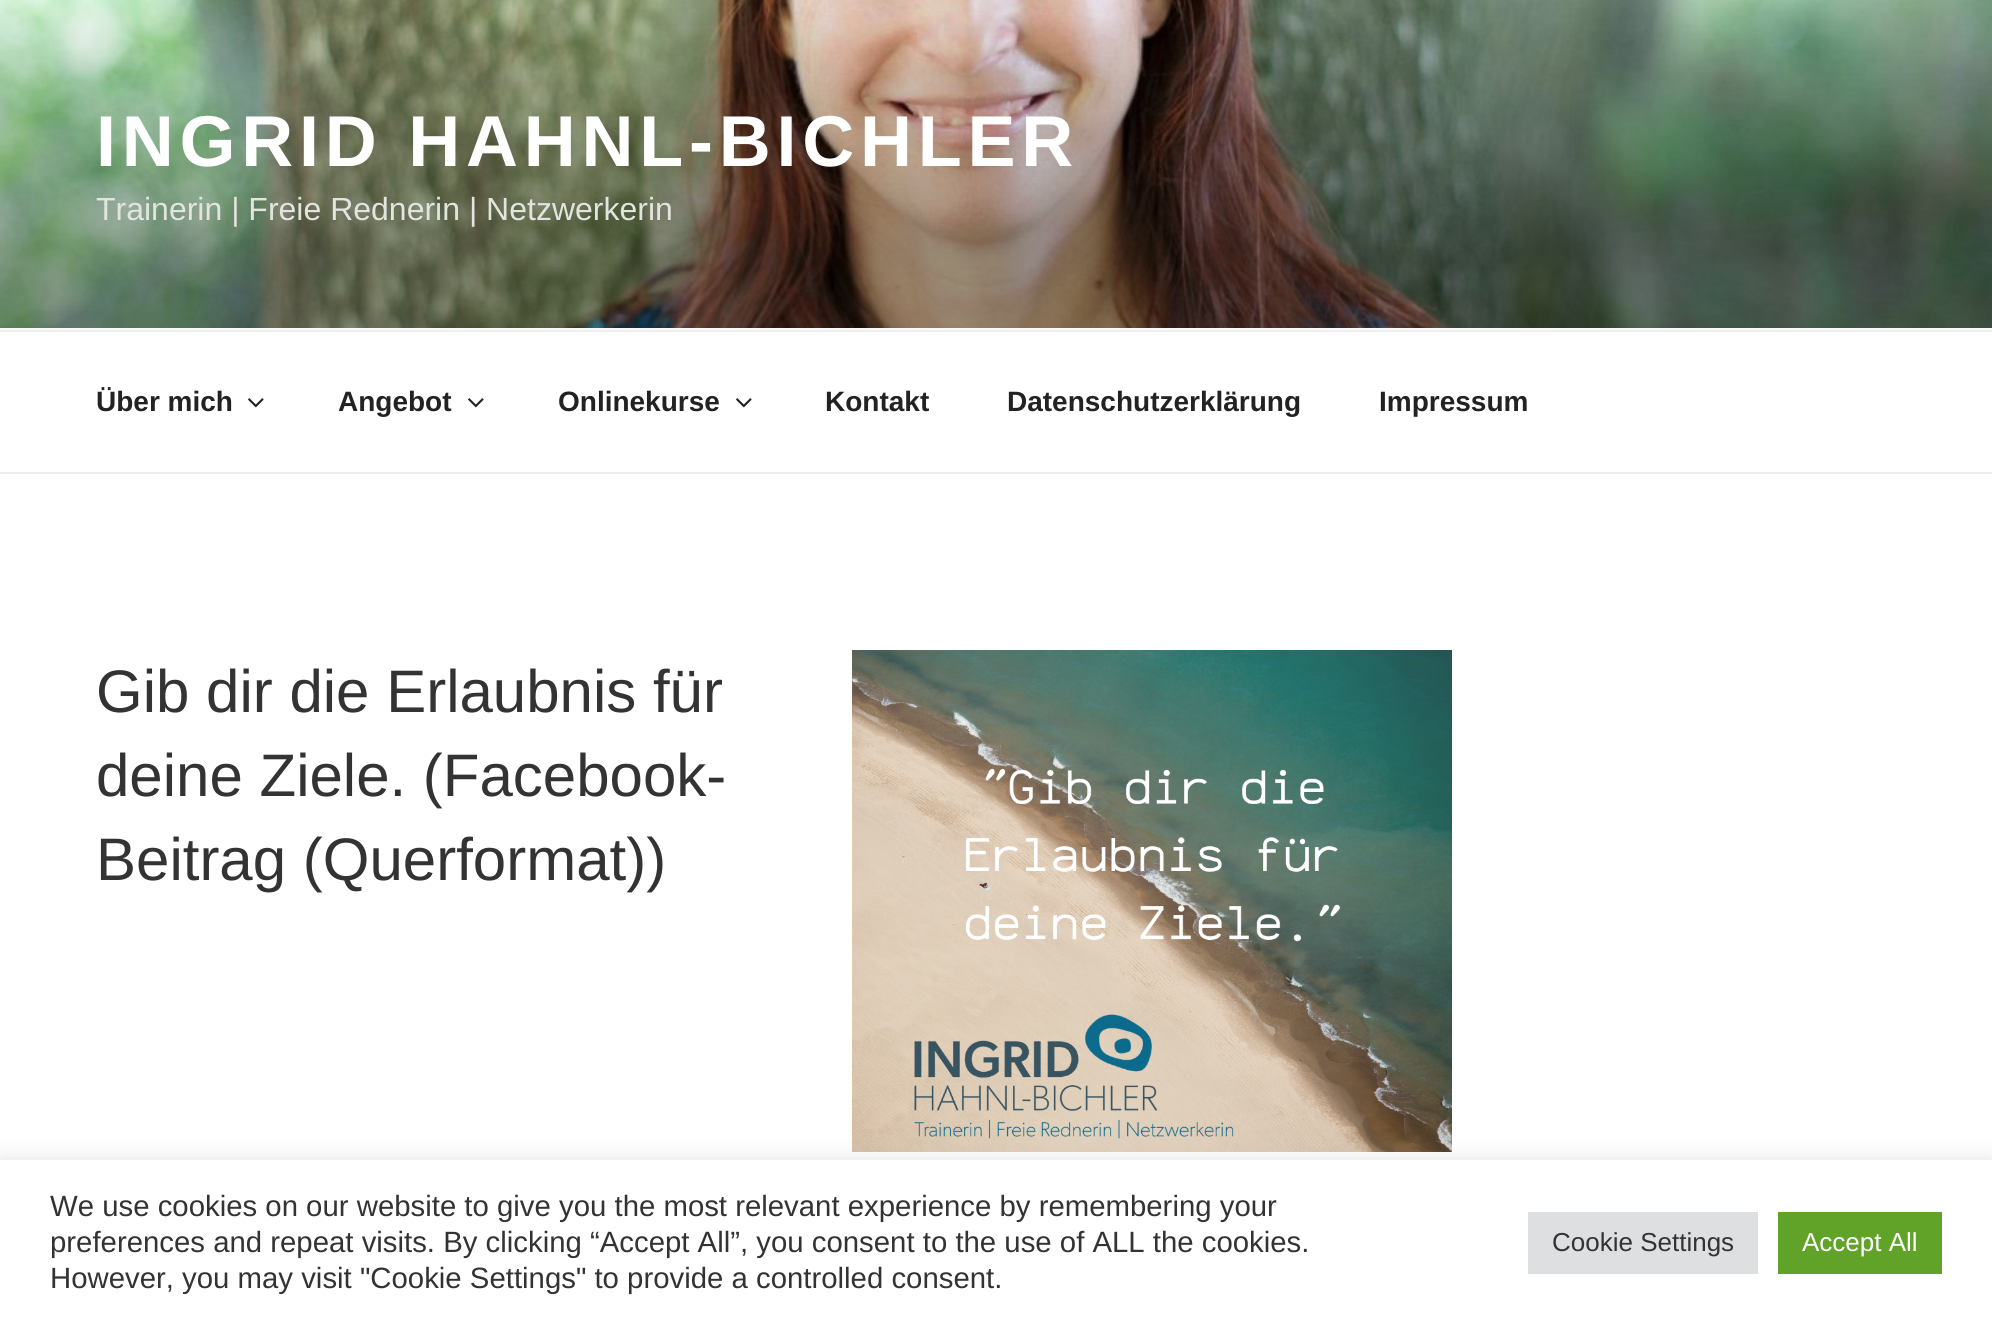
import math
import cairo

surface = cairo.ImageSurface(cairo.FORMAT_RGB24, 1992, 1324)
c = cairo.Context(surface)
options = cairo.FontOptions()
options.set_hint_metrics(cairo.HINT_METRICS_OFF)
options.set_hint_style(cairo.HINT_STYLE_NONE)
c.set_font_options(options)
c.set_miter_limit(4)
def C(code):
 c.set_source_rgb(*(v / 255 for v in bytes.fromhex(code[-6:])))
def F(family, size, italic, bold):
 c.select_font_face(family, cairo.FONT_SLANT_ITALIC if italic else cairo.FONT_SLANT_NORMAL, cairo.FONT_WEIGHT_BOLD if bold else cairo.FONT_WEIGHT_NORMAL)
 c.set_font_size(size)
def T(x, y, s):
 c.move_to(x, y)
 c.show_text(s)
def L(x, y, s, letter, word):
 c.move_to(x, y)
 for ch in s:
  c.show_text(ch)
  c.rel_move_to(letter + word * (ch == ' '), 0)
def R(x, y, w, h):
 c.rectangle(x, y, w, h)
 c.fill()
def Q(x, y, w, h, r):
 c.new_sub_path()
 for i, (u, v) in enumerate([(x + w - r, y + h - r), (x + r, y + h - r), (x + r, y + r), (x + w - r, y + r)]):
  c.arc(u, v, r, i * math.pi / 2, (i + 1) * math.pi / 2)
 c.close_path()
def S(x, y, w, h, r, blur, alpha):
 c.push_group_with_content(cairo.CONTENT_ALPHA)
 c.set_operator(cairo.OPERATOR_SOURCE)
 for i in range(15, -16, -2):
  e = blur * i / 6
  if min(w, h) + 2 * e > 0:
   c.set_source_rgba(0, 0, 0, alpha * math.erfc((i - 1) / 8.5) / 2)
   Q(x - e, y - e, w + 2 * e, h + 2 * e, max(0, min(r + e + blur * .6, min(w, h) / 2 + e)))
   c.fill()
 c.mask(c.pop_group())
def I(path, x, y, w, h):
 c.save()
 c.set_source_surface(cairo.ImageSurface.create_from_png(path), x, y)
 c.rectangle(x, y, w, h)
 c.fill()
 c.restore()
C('ffffff')
c.paint()
C('fafafa')
R(0,328,1992,2)
I('1.png',0,0,1992,328)
F('Liberation Sans',72,0,1)
C('ffffff')
L(96,166,'INGRID HAHNL-BICHLER',5.75,0)
F('Liberation Sans',32,0,0)
C('e2e4df')
T(96,220,'Trainerin | Freie Rednerin | Netzwerkerin')
C('eeeeee')
R(0,330,1992,2)
R(0,472,1992,2)
F('Liberation Sans',28,0,1)
C('222222')
T(96,411,'Über mich')
I('2.png',248,398,16,10)
T(338,411,'Angebot')
I('2.png',468,398,16,10)
T(558,411,'Onlinekurse')
I('2.png',736,398,16,10)
T(825,411,'Kontakt')
T(1007,411,'Datenschutzerklärung')
T(1379,411,'Impressum')
F('Liberation Sans',60,0,0)
C('333333')
T(96,712,'Gib dir die Erlaubnis für')
T(96,796,'deine Ziele. (Facebook-')
T(96,880,'Beitrag (Querformat))')
I('3.png',852,650,600,502)
C('acabab')
S(0,1158,1992,164,0,10,.3)
C('ffffff')
R(0,1160,1992,164)
F('Liberation Sans',29.35,0,0)
C('333333')
T(50,1216,'We use cookies on our website to give you the most relevant experience by remembering your')
T(50,1252,'preferences and repeat visits. By clicking “Accept All”, you consent to the use of ALL the cookies.')
T(50,1288,'However, you may visit "Cookie Settings" to provide a controlled consent.')
C('dedfe0')
R(1528,1212,230,62)
F('Liberation Sans',26,0,0)
C('333333')
T(1552,1251,'Cookie Settings')
C('61a229')
R(1778,1212,164,62)
C('ffffff')
T(1802,1251,'Accept All')
surface.write_to_png('o.png')
